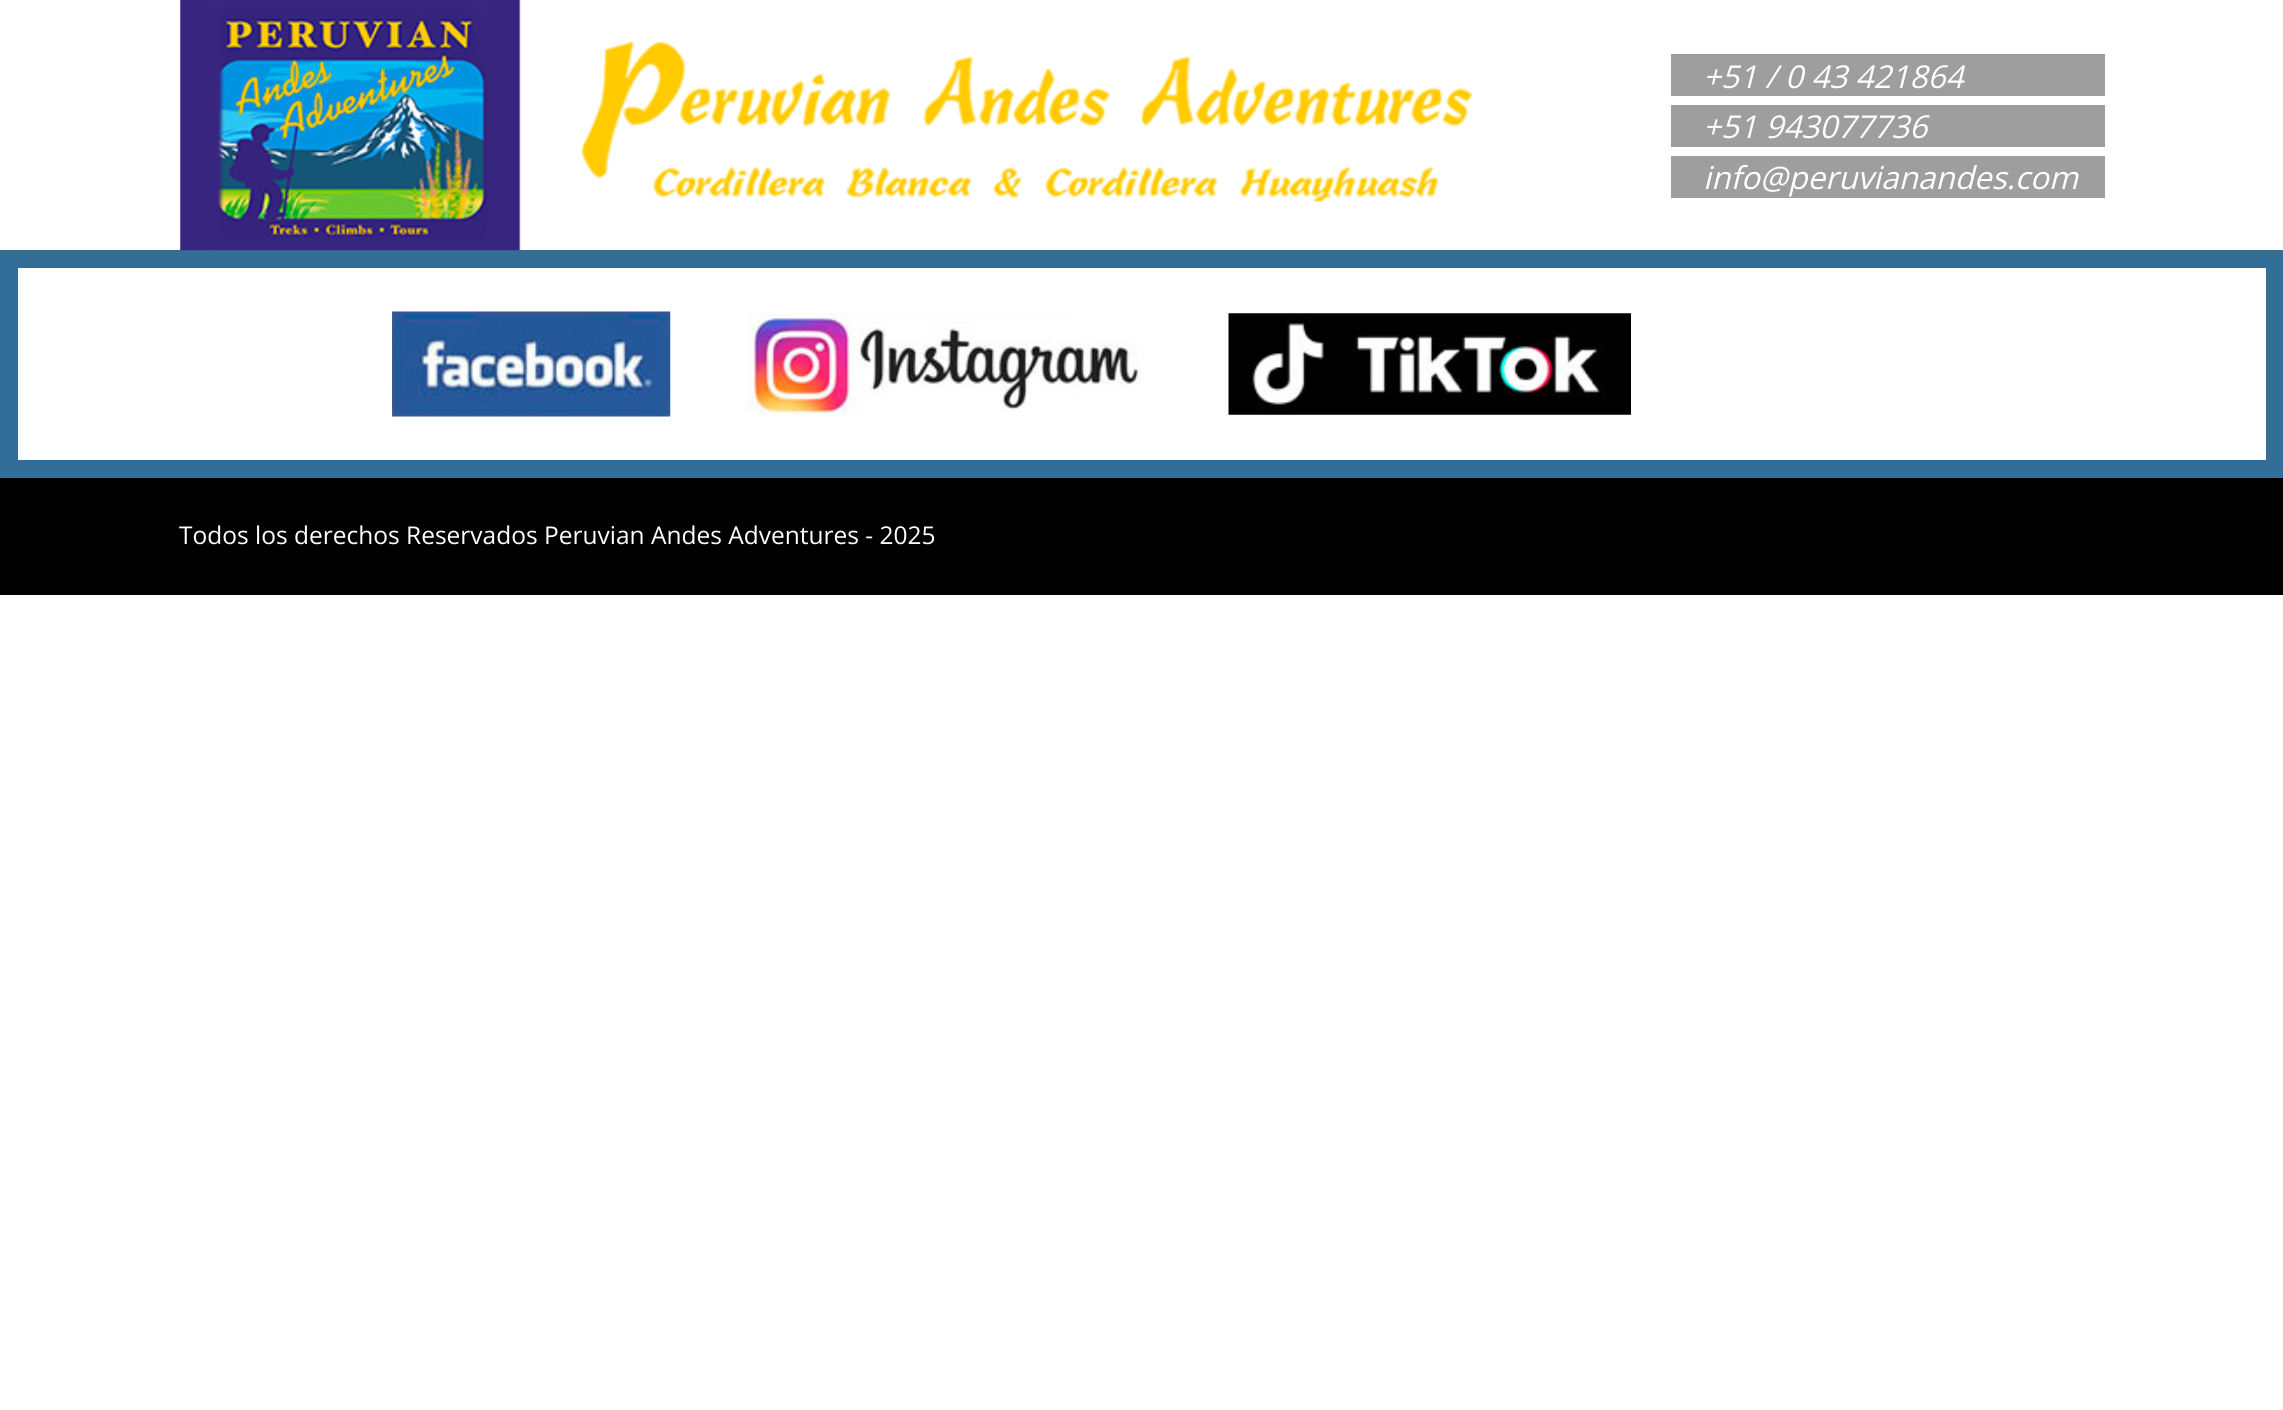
import math
import cairo

surface = cairo.ImageSurface(cairo.FORMAT_RGB24, 2283, 1410)
c = cairo.Context(surface)
options = cairo.FontOptions()
options.set_hint_metrics(cairo.HINT_METRICS_OFF)
options.set_hint_style(cairo.HINT_STYLE_NONE)
c.set_font_options(options)
c.set_miter_limit(4)
def C(code):
 c.set_source_rgb(*(v / 255 for v in bytes.fromhex(code[-6:])))
def F(family, size, italic, bold):
 c.select_font_face(family, cairo.FONT_SLANT_ITALIC if italic else cairo.FONT_SLANT_NORMAL, cairo.FONT_WEIGHT_BOLD if bold else cairo.FONT_WEIGHT_NORMAL)
 c.set_font_size(size)
def T(x, y, s):
 c.move_to(x, y)
 c.show_text(s)
def R(x, y, w, h):
 c.rectangle(x, y, w, h)
 c.fill()
def I(path, x, y, w, h):
 c.save()
 c.set_source_surface(cairo.ImageSurface.create_from_png(path), x, y)
 c.rectangle(x, y, w, h)
 c.fill()
 c.restore()
C('ffffff')
c.paint()
C('336e99')
R(0,250,2283,228)
I('1.png',180,0,1292,251)
C('9e9e9e')
R(1671,54,434,42)
F('Open Sans',31.5,1,0)
C('ffffff')
T(1703,88,'+51 / 0 43 421864')
C('9e9e9e')
R(1671,105,434,42)
C('ffffff')
T(1703,138,'+51 943077736')
C('9e9e9e')
R(1671,156,434,42)
C('ffffff')
T(1703,189,'info@peruvianandes.com')
R(18,268,2248,192)
I('2.png',392,311,279,106)
I('3.png',747,313,394,102)
I('4.png',1228,313,403,102)
C('000000')
R(0,478,2283,117)
F('Open Sans',24.5,0,0)
C('ffffff')
T(179,544,'Todos los derechos Reservados Peruvian Andes Adventures - 2025')
surface.write_to_png('o.png')
